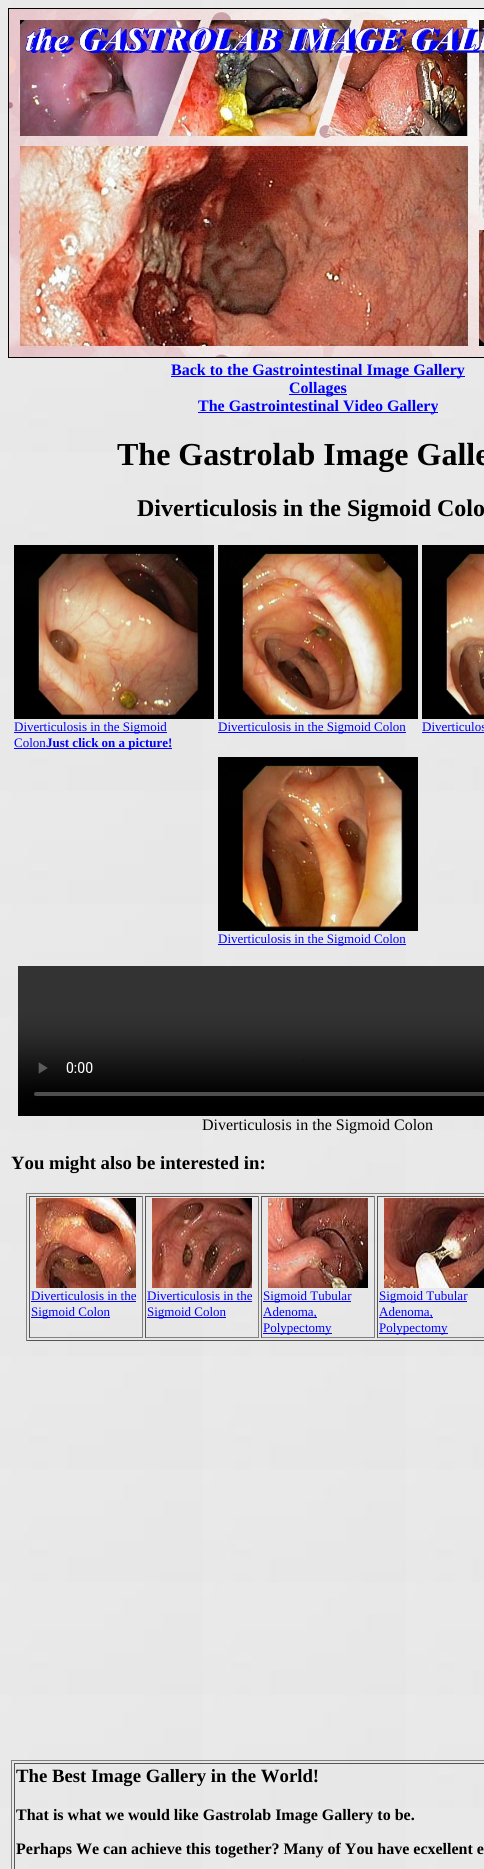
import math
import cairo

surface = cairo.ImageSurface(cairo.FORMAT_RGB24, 484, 1869)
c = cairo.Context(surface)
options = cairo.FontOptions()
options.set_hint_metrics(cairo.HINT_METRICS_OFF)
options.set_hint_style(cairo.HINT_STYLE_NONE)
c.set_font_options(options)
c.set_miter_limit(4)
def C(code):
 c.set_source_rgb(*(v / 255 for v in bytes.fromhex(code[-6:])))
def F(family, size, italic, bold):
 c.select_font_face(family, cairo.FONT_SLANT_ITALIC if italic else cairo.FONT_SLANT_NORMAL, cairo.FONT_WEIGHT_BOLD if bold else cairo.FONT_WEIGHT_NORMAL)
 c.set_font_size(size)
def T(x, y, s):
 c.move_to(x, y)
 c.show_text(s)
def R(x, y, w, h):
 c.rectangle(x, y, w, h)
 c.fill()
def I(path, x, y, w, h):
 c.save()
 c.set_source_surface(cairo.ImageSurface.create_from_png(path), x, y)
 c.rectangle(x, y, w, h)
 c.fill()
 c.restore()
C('ffffff')
c.paint()
I('1.png',0,0,484,1869)
c.rectangle(8.5,8.5,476,349)
C('000000')
c.set_line_width(1)
c.stroke()
I('2.png',9,9,475,348)
C('0000ff')
R(171,376,294,1)
F('Liberation Serif',16,0,1)
T(171,375,'Back to the Gastrointestinal Image Gallery')
R(289,394,58,1)
T(289,393,'Collages')
R(198,412,240,1)
T(198,411,'The Gastrointestinal Video Gallery')
F('Liberation Serif',32,0,1)
C('000000')
T(117,465,'The Gastrolab Image Galle')
F('Liberation Serif',24,0,1)
T(137,516,'Diverticulosis in the Sigmoid Colo')
I('3.png',14,545,200,174)
C('0000ff')
R(14,732,153,1)
F('Liberation Serif',13,0,0)
T(14,731,'Diverticulosis in the Sigmoid')
T(14,747,'Colon')
R(14,748,158,1)
F('Liberation Serif',13,0,1)
T(46,747,'Just click on a picture!')
I('4.png',218,545,200,174)
R(218,732,188,1)
F('Liberation Serif',13,0,0)
T(218,731,'Diverticulosis in the Sigmoid Colon')
I('5.png',422,545,62,174)
T(422,731,'Diverticulos')
R(422,732,62,1)
I('6.png',218,757,200,174)
R(218,944,188,1)
T(218,943,'Diverticulosis in the Sigmoid Colon')
I('7.png',18,966,466,150)
F('Liberation Serif',16,0,0)
C('000000')
T(202,1130,'Diverticulosis in the Sigmoid Colon')
F('Liberation Serif',18.75,0,1)
T(11,1169,'You might also be interested in:')
C('808080')
R(26,1193,458,1)
C('555555')
R(26,1340,458,1)
C('808080')
R(26,1193,1,148)
C('555555')
R(29,1196,114,1)
C('808080')
R(142,1196,1,142)
R(29,1337,114,1)
C('555555')
R(29,1196,1,142)
I('8.png',36,1198,100,90)
F('Liberation Serif',13,0,0)
C('0000ff')
T(31,1300,'Diverticulosis in the')
R(31,1301,105,1)
R(31,1317,79,1)
T(31,1316,'Sigmoid Colon')
C('555555')
R(145,1196,114,1)
C('808080')
R(258,1196,1,142)
R(145,1337,114,1)
C('555555')
R(145,1196,1,142)
I('9.png',152,1198,100,90)
C('0000ff')
T(147,1300,'Diverticulosis in the')
R(147,1301,105,1)
R(147,1317,79,1)
T(147,1316,'Sigmoid Colon')
C('555555')
R(261,1196,114,1)
C('808080')
R(374,1196,1,142)
R(261,1337,114,1)
C('555555')
R(261,1196,1,142)
I('10.png',268,1198,100,90)
C('0000ff')
R(263,1301,88,1)
T(263,1300,'Sigmoid Tubular')
R(263,1317,54,1)
T(263,1316,'Adenoma,')
R(263,1333,69,1)
T(263,1332,'Polypectomy')
C('555555')
R(377,1196,107,1)
C('808080')
R(377,1337,107,1)
C('555555')
R(377,1196,1,142)
I('11.png',384,1198,100,90)
C('0000ff')
R(379,1301,88,1)
T(379,1300,'Sigmoid Tubular')
R(379,1317,54,1)
T(379,1316,'Adenoma,')
R(379,1333,69,1)
T(379,1332,'Polypectomy')
C('808080')
R(11,1760,473,1)
R(11,1760,1,109)
C('555555')
R(14,1763,470,1)
R(14,1763,1,106)
F('Liberation Serif',18.75,0,1)
C('000000')
T(16,1782,'The Best Image Gallery in the World!')
F('Liberation Serif',16,0,1)
T(16,1820,'That is what we would like Gastrolab Image Gallery to be.')
T(16,1854,'Perhaps We can achieve this together? Many of You have ecxellent e')
surface.write_to_png('o.png')
